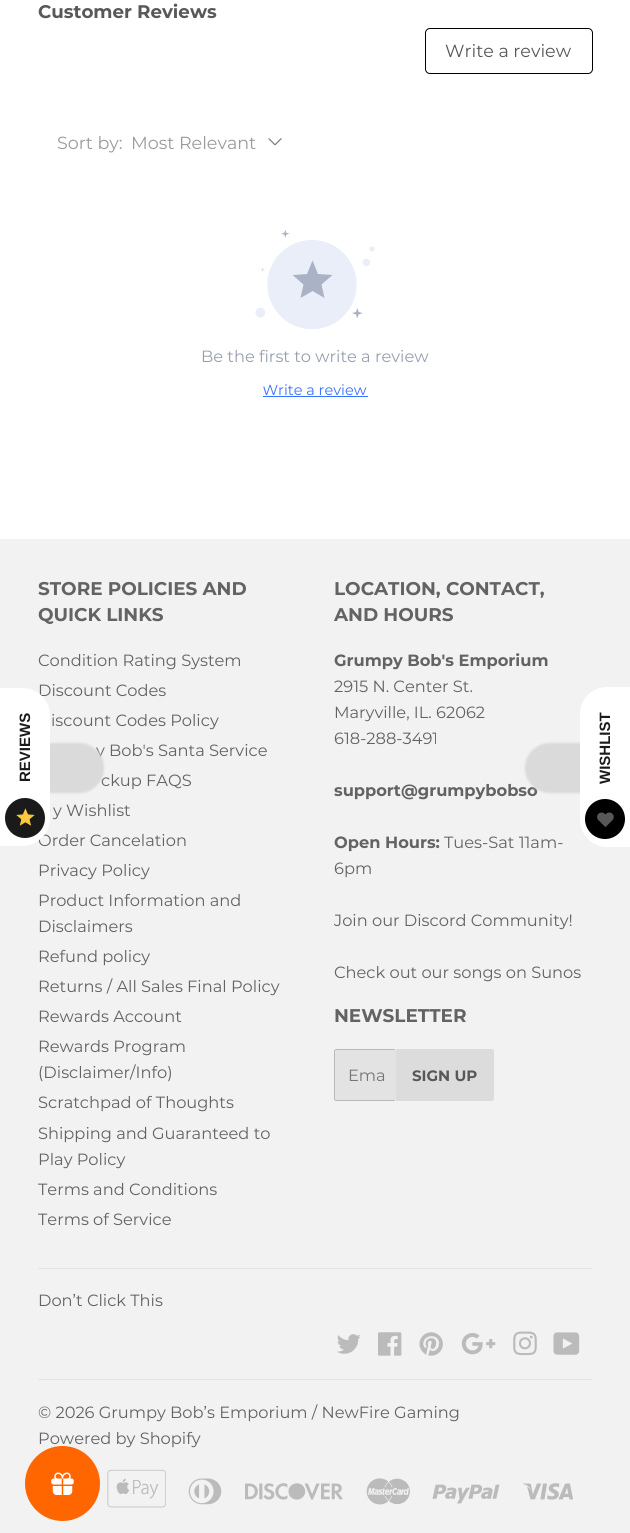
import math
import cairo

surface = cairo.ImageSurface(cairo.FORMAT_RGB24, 630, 1533)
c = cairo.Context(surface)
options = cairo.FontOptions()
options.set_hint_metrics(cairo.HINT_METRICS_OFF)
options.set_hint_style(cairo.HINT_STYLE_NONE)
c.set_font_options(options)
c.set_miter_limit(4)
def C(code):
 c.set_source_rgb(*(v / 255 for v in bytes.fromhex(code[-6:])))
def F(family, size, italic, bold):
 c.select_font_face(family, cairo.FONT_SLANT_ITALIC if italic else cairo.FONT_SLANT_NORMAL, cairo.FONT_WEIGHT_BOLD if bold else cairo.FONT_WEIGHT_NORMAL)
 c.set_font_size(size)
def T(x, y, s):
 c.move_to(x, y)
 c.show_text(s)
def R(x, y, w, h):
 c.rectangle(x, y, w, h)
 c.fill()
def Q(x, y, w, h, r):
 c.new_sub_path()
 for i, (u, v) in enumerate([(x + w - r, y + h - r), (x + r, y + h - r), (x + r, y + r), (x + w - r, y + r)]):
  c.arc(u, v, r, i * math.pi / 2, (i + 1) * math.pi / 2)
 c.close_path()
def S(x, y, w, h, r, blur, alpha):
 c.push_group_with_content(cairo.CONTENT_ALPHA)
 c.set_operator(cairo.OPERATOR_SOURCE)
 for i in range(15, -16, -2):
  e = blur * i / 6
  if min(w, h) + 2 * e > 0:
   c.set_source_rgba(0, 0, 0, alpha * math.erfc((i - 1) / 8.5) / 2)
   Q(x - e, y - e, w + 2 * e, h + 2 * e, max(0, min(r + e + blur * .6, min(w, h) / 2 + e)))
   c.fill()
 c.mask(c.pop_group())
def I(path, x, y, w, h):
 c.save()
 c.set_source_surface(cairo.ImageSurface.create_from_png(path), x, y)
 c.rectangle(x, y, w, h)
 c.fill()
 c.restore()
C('ffffff')
c.paint()
F('Montserrat',18.25,0,1)
C('585858')
T(38,18,'Customer Reviews')
Q(425.5,28.5,167,45,4.5)
C('000000')
c.set_line_width(1)
c.stroke()
F('Montserrat',17.5,0,0)
C('585858')
T(445,57,'Write a review')
C('9b9b9b')
T(57,149,'Sort by:')
T(131,149,'Most Relevant')
I('1.png',268,138,14,8)
I('2.png',255,230,120,99)
C('aab2c5')
c.new_path()
c.move_to(312.5,260.5)
c.line_to(318,274)
c.line_to(332.5,275)
c.line_to(321.5,284.5)
c.line_to(324.5,298)
c.line_to(312.5,291)
c.line_to(300.5,298)
c.line_to(303.5,284.5)
c.line_to(292.5,275)
c.line_to(307,274)
c.close_path()
c.fill()
F('Montserrat',16.25,0,0)
C('979faf')
T(201,362,'Be the first to write a review')
c.save()
Q(263,384,105,15,5)
c.clip()
F('Montserrat',14.5,0,0)
C('3772ff')
T(262,395,'Write a review')
c.restore()
C('3772ff')
R(263,396,105,1)
C('f2f2f2')
R(0,539,630,994)
F('Montserrat',18.4,0,1)
C('636363')
T(38,595,'STORE POLICIES AND')
T(38,621,'QUICK LINKS')
F('Montserrat',16.25,0,0)
T(38,666,'Condition Rating System')
T(38,696,'Discount Codes')
T(51,726,'iscount Codes Policy')
T(96,756,'y Bob\'s Santa Service')
T(101,786,'ckup FAQS')
T(53,816,'y Wishlist')
T(38,846,'Order Cancelation')
T(38,876,'Privacy Policy')
T(38,906,'Product Information and')
T(38,932,'Disclaimers')
T(38,962,'Refund policy')
T(38,992,'Returns / All Sales Final Policy')
T(38,1022,'Rewards Account')
T(38,1052,'Rewards Program')
T(38,1078,'(Disclaimer/Info)')
T(38,1108,'Scratchpad of Thoughts')
T(38,1139,'Shipping and Guaranteed to')
T(38,1165,'Play Policy')
T(38,1195,'Terms and Conditions')
T(38,1225,'Terms of Service')
F('Montserrat',18.4,0,1)
T(334,595,'LOCATION, CONTACT,')
T(334,621,'AND HOURS')
F('Montserrat',16.25,0,1)
T(334,666,'Grumpy Bob\'s Emporium')
F('Montserrat',16.25,0,0)
T(334,692,'2915 N. Center St.')
T(334,718,'Maryville, IL. 62062')
T(334,744,'618-288-3491')
F('Montserrat',16.25,0,1)
T(334,796,'support@grumpybobso')
T(334,848,'Open Hours:')
F('Montserrat',16.25,0,0)
T(444,848,'Tues-Sat 11am-')
T(334,874,'6pm')
T(334,926,'Join our Discord Community!')
T(334,978,'Check out our songs on Sunos')
F('Montserrat',18.4,0,1)
T(334,1022,'NEWSLETTER')
C('e3e3e3')
Q(334,1049,62,52,2.5)
c.fill()
C('b9b9b9')
R(335,1049,60,1)
R(335,1100,60,1)
R(334,1050,1,50)
F('Montserrat',16.25,0,0)
C('757575')
T(348,1081,'Ema')
C('dcdcdc')
c.new_path()
c.move_to(396,1049)
c.line_to(491.5,1049)
c.curve_to(493,1049,494,1050,494,1051.5)
c.line_to(494,1098.5)
c.curve_to(494,1100,493,1101,491.5,1101)
c.line_to(396,1101)
c.close_path()
c.fill()
F('Montserrat',15,0,1)
C('585858')
T(412,1081,'SIGN UP')
C('e5e5e5')
R(38,1268,555,1)
F('Montserrat',16.25,0,0)
C('636363')
T(38,1306,'Don’t Click This')
I('3.png',337,1334,24,20)
I('4.png',378,1332,24,24)
I('5.png',419,1332,24,24)
I('6.png',461,1333,35,22)
I('7.png',513,1331,24,25)
I('8.png',553,1332,27,23)
C('e5e5e5')
R(38,1379,555,1)
C('636363')
T(38,1418,'© 2026 Grumpy Bob’s Emporium / NewFire Gaming')
T(38,1444,'Powered by Shopify')
I('9.png',107,1469,59,39)
I('10.png',188,1478,34,27)
I('11.png',245,1483,98,17)
I('12.png',366,1478,44,27)
I('13.png',432,1484,68,20)
I('14.png',522,1483,51,17)
C('dadada')
S(-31,743,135,50,28,1,1)
C('ffffff')
c.new_path()
c.move_to(0,846)
c.line_to(0,688)
c.line_to(22,688)
c.curve_to(38,688,50,700,50,716)
c.line_to(50,818)
c.curve_to(50,833,38,846,22,846)
c.close_path()
c.fill()
F('Liberation Sans',15,0,1)
C('1a1a1a')
c.save()
c.translate(30,782)
c.rotate(-90 * math.pi / 180)
T(0,0,'REVIEWS')
c.restore()
c.new_path()
c.arc(25,818,20,0,2 * math.pi)
c.fill()
I('15.png',16,808,19,18)
C('dadada')
S(525,743,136,50,28,1,1)
C('ffffff')
c.new_path()
c.move_to(580,819)
c.line_to(580,714)
c.curve_to(580,699,592,687,607,687)
c.line_to(630,687)
c.line_to(630,847)
c.line_to(607,847)
c.curve_to(592,847,580,835,580,819)
c.close_path()
c.fill()
C('1a1a1a')
c.save()
c.translate(610,784)
c.rotate(-90 * math.pi / 180)
T(0,0,'WISHLIST')
c.restore()
C('000000')
c.new_path()
c.arc(605,819,20,0,2 * math.pi)
c.fill()
I('16.png',597,812,17,15)
C('ff6600')
c.arc(62.5,1483.5,37.5,0,2 * math.pi)
c.fill()
I('17.png',51,1472,23,23)
surface.write_to_png('o.png')
